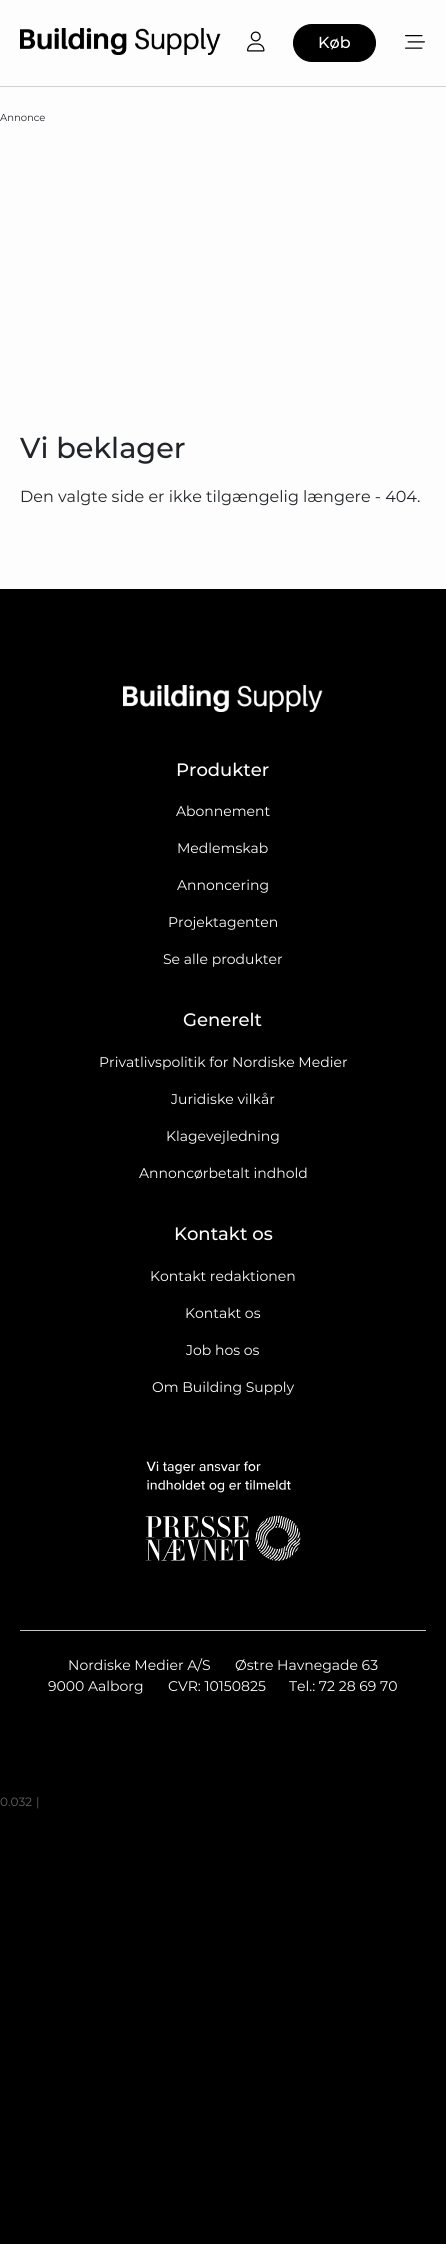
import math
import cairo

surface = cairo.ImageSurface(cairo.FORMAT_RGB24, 446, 2244)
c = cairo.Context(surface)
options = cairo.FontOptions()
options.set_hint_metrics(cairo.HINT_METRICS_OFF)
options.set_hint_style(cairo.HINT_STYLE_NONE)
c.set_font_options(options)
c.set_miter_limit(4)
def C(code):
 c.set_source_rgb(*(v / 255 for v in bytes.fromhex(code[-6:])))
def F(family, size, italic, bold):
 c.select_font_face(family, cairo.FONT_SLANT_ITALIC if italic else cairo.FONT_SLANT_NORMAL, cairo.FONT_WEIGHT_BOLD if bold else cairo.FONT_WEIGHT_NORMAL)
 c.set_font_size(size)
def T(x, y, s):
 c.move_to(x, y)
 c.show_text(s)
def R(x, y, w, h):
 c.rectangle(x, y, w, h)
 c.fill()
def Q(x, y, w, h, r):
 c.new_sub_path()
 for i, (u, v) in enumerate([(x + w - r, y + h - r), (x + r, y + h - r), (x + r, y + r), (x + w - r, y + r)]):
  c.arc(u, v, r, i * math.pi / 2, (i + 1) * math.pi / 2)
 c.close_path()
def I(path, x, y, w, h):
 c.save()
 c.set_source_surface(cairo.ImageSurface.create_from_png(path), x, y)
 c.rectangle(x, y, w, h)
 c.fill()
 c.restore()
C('000000')
c.paint()
C('fdfdfd')
R(0,87,446,502)
R(0,0,446,86)
C('d1d1d1')
R(0,86,446,1)
I('1.png',20,28,201,27)
I('2.png',247,31,18,21)
C('000000')
Q(293.5,24.5,82,37,18.5)
c.fill_preserve()
c.set_line_width(1)
c.stroke()
F('Montserrat Medium',16,0,0)
C('fdfdfd')
T(318,48,'Køb')
I('3.png',405,35,20,14)
F('Montserrat',10,0,0)
C('212529')
T(0,121,'Annonce')
F('Montserrat Medium',28.75,0,0)
T(20,458,'Vi beklager')
F('Montserrat',16,0,0)
T(20,502,'Den valgte side er ikke tilgængelig længere - 404.')
I('4.png',123,685,200,27)
F('Montserrat Medium',18,0,0)
C('fdfdfd')
T(176,776,'Produkter')
F('Montserrat',14,0,0)
T(176,816,'Abonnement')
T(177,853,'Medlemskab')
T(177,890,'Annoncering')
T(168,927,'Projektagenten')
T(163,964,'Se alle produkter')
F('Montserrat Medium',18,0,0)
T(183,1026,'Generelt')
F('Montserrat',14,0,0)
T(99,1067,'Privatlivspolitik for Nordiske Medier')
T(171,1104,'Juridiske vilkår')
T(166,1141,'Klagevejledning')
T(139,1178,'Annoncørbetalt indhold')
F('Montserrat Medium',18,0,0)
T(174,1240,'Kontakt os')
F('Montserrat',14,0,0)
T(150,1281,'Kontakt redaktionen')
T(185,1318,'Kontakt os')
T(186,1355,'Job hos os')
T(152,1392,'Om Building Supply')
I('5.png',145,1461,156,100)
C('c6c5c4')
R(20,1630,406,1)
C('fdfdfd')
T(68,1670,'Nordiske Medier A/S')
T(235,1670,'Østre Havnegade 63')
T(48,1691,'9000 Aalborg')
T(168,1691,'CVR: 10150825')
T(289,1691,'Tel.: 72 28 69 70')
F('Montserrat',12,0,0)
C('636262')
T(0,1806,'0.032')
T(36,1806,'|')
surface.write_to_png('o.png')
